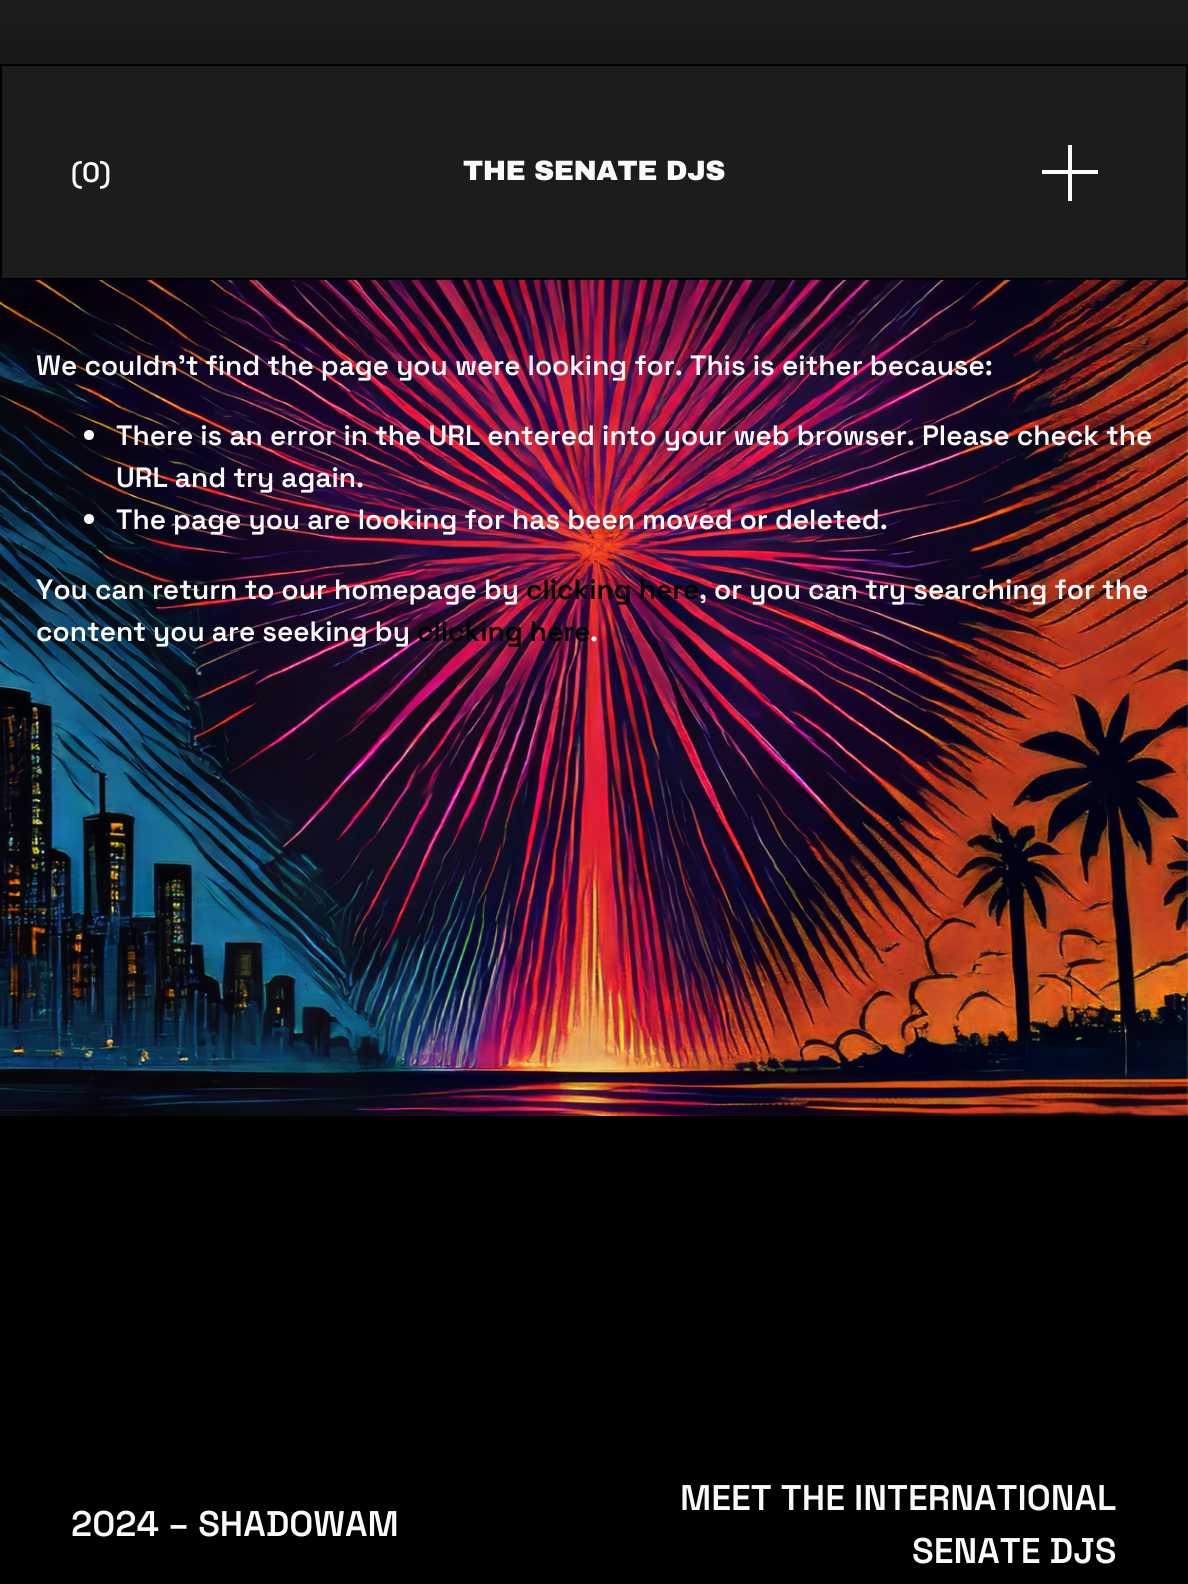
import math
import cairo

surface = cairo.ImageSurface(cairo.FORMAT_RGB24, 1188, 1584)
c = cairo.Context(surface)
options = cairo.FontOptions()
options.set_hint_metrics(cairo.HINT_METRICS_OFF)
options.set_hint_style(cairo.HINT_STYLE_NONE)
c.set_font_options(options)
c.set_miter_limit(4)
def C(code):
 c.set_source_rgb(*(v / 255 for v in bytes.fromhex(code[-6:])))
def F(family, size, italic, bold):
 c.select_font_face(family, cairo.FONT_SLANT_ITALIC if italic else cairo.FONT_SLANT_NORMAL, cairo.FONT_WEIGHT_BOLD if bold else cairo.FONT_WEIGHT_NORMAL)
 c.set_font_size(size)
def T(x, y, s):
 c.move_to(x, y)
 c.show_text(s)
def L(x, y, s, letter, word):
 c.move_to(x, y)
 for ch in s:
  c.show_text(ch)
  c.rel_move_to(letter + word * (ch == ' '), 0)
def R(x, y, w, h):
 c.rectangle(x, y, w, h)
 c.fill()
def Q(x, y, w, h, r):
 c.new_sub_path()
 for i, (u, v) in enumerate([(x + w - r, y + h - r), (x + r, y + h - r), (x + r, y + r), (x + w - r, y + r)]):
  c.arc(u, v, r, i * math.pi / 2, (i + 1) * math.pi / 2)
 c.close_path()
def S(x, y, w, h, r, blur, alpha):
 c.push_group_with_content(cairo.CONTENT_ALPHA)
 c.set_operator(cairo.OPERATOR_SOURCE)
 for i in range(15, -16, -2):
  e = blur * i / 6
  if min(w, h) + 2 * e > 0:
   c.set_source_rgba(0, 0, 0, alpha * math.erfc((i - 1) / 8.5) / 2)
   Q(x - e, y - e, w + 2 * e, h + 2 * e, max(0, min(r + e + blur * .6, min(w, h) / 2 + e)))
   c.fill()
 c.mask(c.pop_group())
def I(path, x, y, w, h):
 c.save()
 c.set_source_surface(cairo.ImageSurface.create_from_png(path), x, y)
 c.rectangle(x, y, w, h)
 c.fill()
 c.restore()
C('ffffff')
c.paint()
I('1.png',0,280,1188,836)
C('1c1c1c')
R(0,0,1188,278)
c.save()
c.set_fill_rule(cairo.FILL_RULE_EVEN_ODD)
c.new_path()
c.move_to(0,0)
c.line_to(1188,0)
c.line_to(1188,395)
c.line_to(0,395)
c.close_path()
c.move_to(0,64)
c.line_to(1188,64)
c.line_to(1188,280)
c.line_to(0,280)
c.close_path()
c.clip()
C('000000')
S(-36,34,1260,324,0,12,.15)
c.restore()
c.rectangle(1,65,1186,214)
C('000000')
c.stroke()
F('Space Grotesk SemiBold',28,0,0)
C('fafafa')
T(71,182,'(0)')
F('Archivo Black Black',28,0,0)
L(463,180,'THE SENATE DJS',-.5,0)
R(1042,170,56,4)
R(1068,145,4,56)
F('Space Grotesk SemiBold',28,0,0)
T(36,375,'We couldn\'t find the page you were looking for. This is either because:')
C('f9fafb')
c.new_path()
c.arc(89,435,5,0,2 * math.pi)
c.fill()
C('fafafa')
T(116,445,'There is an error in the URL entered into your web browser. Please check the')
T(116,487,'URL and try again.')
C('f9fafb')
c.new_path()
c.arc(89,519,5,0,2 * math.pi)
c.fill()
C('fafafa')
T(116,529,'The page you are looking for has been moved or deleted.')
T(36,599,'You can return to our homepage by')
C('000000')
T(526,599,'clicking here')
C('fafafa')
T(699,599,', or you can try searching for the')
T(36,641,'content you are seeking by')
C('000000')
T(417,641,'clicking here')
C('fafafa')
T(590,641,'.')
C('000000')
R(0,1116,1188,468)
F('Space Grotesk SemiBold',35.6,0,0)
C('fafafa')
T(71,1536,'2024 – SHADOWAM')
T(680,1510,'MEET THE INTERNATIONAL')
T(912,1563,'SENATE DJS')
surface.write_to_png('o.png')
